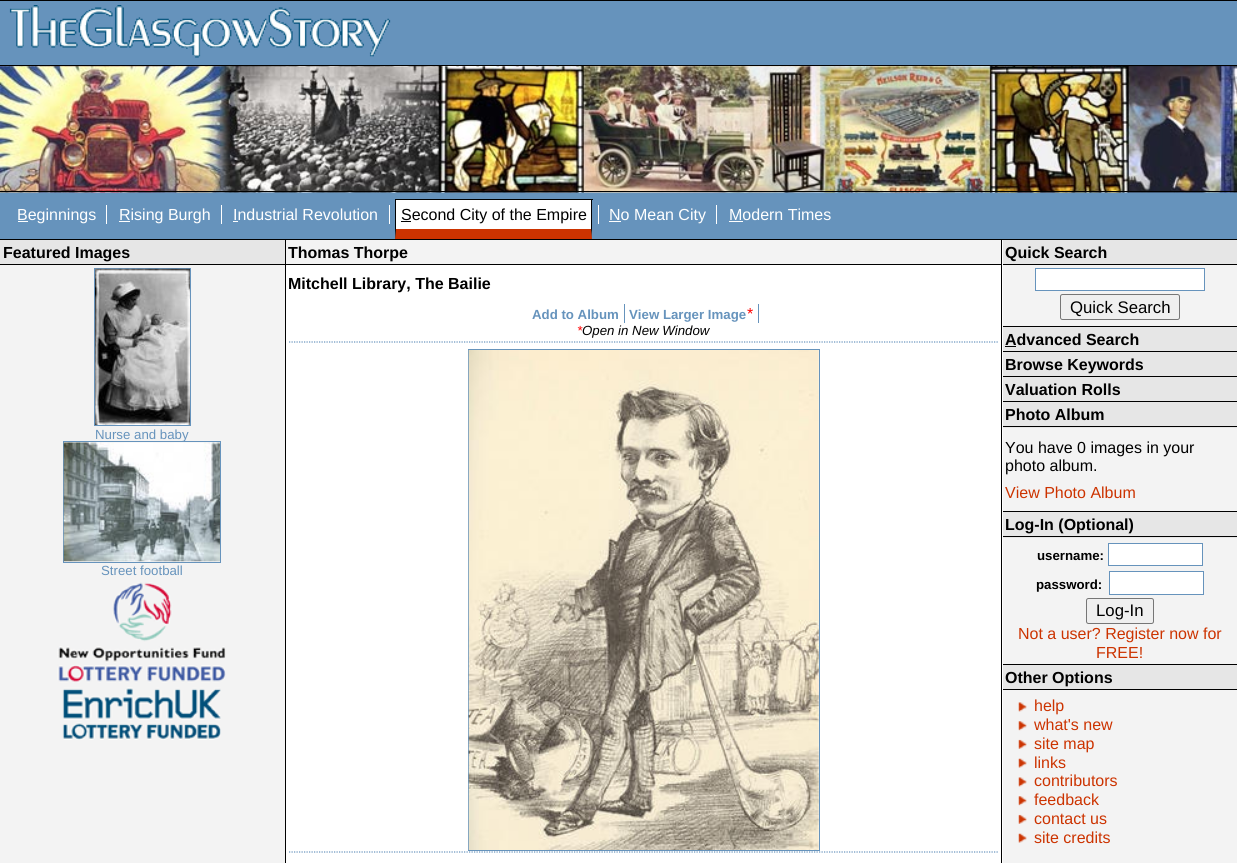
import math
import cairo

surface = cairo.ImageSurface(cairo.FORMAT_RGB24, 1237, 863)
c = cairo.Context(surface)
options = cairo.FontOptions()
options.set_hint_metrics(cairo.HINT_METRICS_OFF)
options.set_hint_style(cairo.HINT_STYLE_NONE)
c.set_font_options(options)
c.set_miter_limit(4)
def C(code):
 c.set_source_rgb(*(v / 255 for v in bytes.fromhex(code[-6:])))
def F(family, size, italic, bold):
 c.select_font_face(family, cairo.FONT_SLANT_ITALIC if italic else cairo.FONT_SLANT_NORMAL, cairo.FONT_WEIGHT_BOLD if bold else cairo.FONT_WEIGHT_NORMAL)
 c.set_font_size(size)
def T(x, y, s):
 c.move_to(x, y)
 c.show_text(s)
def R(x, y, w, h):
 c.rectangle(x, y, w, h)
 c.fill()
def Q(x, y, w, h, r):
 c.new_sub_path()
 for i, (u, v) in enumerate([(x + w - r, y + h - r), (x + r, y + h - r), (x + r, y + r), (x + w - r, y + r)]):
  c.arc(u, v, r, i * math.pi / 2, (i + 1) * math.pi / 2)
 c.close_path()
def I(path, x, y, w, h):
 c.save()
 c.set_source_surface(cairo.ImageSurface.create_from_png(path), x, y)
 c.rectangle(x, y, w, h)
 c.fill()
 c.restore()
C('f3f3f3')
c.paint()
C('6693bc')
R(0,1,1237,64)
C('000000')
R(0,0,1237,1)
I('1.png',9,5,382,53)
C('6693bc')
R(0,192,1237,47)
I('2.png',0,66,1237,127)
C('000000')
R(0,65,1237,1)
R(0,191,1237,1)
R(0,239,1237,1)
C('ffffff')
R(18,221,10,1)
F('Liberation Sans',16,0,0)
T(17,220,'Beginnings')
R(119,221,11,1)
T(119,220,'Rising Burgh')
R(106,205,1,19)
T(233,220,'Industrial Revolution')
R(221,205,1,19)
R(233,221,5,1)
R(396,200,195,29)
C('000000')
R(401,221,10,1)
T(401,220,'Second City of the Empire')
C('ffffff')
R(389,205,1,19)
C('000000')
R(395,199,198,1)
C('cc3300')
c.new_path()
c.move_to(411,239)
c.line_to(395,239)
c.line_to(396,229)
c.line_to(411,229)
c.close_path()
c.fill()
C('000000')
c.new_path()
c.move_to(395,239)
c.line_to(395,199)
c.line_to(396,200)
c.line_to(396,229)
c.close_path()
c.fill()
c.new_path()
c.move_to(592,199)
c.line_to(592,239)
c.line_to(591,229)
c.line_to(591,200)
c.close_path()
c.fill()
C('cc3300')
c.new_path()
c.move_to(592,239)
c.line_to(411,239)
c.line_to(411,229)
c.line_to(591,229)
c.close_path()
c.fill()
C('ffffff')
R(609,221,12,1)
T(609,220,'No Mean City')
R(598,205,1,19)
T(729,220,'Modern Times')
R(716,205,1,19)
R(729,221,14,1)
C('e6e6e6')
R(0,240,285,24)
C('000000')
R(0,264,285,1)
F('Liberation Sans',16,0,1)
T(3,258,'Featured Images')
c.rectangle(94.5,268.5,96,157)
C('6693bc')
c.set_line_width(1)
c.stroke()
I('3.png',95,268,95,157)
F('Liberation Sans',13.25,0,0)
T(95,439,'Nurse and baby')
c.rectangle(63.5,441.5,157,121)
c.stroke()
I('4.png',63,442,157,120)
T(101,575,'Street football')
I('5.png',57,582,169,101)
I('6.png',62,687,159,53)
C('ffffff')
R(286,240,717,623)
C('000000')
R(1001,240,1,623)
R(285,240,1,623)
C('f3f3f3')
R(286,240,715,24)
C('000000')
R(286,264,715,1)
F('Liberation Sans',16,0,1)
T(288,258,'Thomas Thorpe')
T(288,289,'Mitchell Library, The Bailie')
c.new_path()
c.move_to(289,342)
c.line_to(999,342)
C('6693bc')
c.set_line_width(1.2)
c.set_dash([1.25,1.25])
c.stroke()
F('Liberation Sans',13.25,0,1)
T(532,319,'Add to Album')
T(629,319,'View Larger Image')
R(624,304,1,19)
F('Liberation Sans',16,0,0)
C('ff0000')
T(747,319,'*')
C('6693bc')
R(758,304,1,19)
F('Liberation Sans',13.25,1,0)
C('ff0000')
T(577,335,'*')
C('000000')
T(582,335,'Open in New Window')
c.rectangle(468.5,349.5,351,501)
C('6693bc')
c.set_line_width(1)
c.set_dash([])
c.stroke()
I('7.png',468,350,351,500)
c.new_path()
c.move_to(289,852)
c.line_to(999,852)
c.set_line_width(1.2)
c.set_dash([1.25,1.25])
c.stroke()
C('e6e6e6')
R(1003,240,234,24)
C('000000')
R(1003,264,234,1)
F('Liberation Sans',16,0,1)
T(1005,258,'Quick Search')
C('ffffff')
c.rectangle(1035.5,268.5,169,22)
c.fill_preserve()
C('6693bc')
c.set_line_width(1)
c.set_dash([])
c.stroke()
C('efefef')
Q(1060.5,294.5,119,25,2)
c.fill_preserve()
C('767676')
c.stroke()
F('Liberation Sans',16.75,0,0)
C('000000')
T(1070,313,'Quick Search')
C('e6e6e6')
R(1003,327,234,24)
C('000000')
R(1003,326,234,1)
F('Liberation Sans',16,0,1)
T(1005,345,'Advanced Search')
R(1005,346,11,1)
C('e6e6e6')
R(1003,352,234,24)
C('000000')
R(1003,351,234,1)
T(1005,370,'Browse Keywords')
C('e6e6e6')
R(1003,377,234,24)
C('000000')
R(1003,376,234,1)
T(1005,395,'Valuation Rolls')
C('e6e6e6')
R(1003,402,234,26)
C('000000')
R(1003,401,234,1)
R(1003,426,234,1)
T(1005,420,'Photo Album')
F('Liberation Sans',16,0,0)
T(1005,453,'You have 0 images in your')
T(1005,471,'photo album.')
C('cc3300')
T(1005,498,'View Photo Album')
C('e6e6e6')
R(1003,512,234,26)
C('000000')
R(1003,511,234,1)
R(1003,536,234,1)
F('Liberation Sans',16,0,1)
T(1005,530,'Log-In (Optional)')
F('Liberation Sans',13.25,0,1)
T(1037,560,'username:')
C('ffffff')
c.rectangle(1108.5,543.5,94,22)
c.fill_preserve()
C('6693bc')
c.stroke()
C('000000')
T(1036,589,'password:')
C('ffffff')
c.rectangle(1109.5,571.5,94,23)
c.fill_preserve()
C('6693bc')
c.stroke()
C('efefef')
Q(1086.5,598.5,67,25,2)
c.fill_preserve()
C('767676')
c.stroke()
F('Liberation Sans',16.75,0,0)
C('000000')
T(1096,616,'Log-In')
F('Liberation Sans',16,0,0)
C('cc3300')
T(1018,639,'Not a user? Register now for')
T(1096,658,'FREE!')
C('e6e6e6')
R(1003,665,234,24)
C('000000')
R(1003,664,234,1)
R(1003,689,234,1)
F('Liberation Sans',16,0,1)
T(1005,683,'Other Options')
I('8.png',1018,702,9,10)
F('Liberation Sans',16,0,0)
C('cc3300')
T(1034,711,'help')
I('9.png',1018,721,9,10)
T(1034,730,'what\'s new')
I('10.png',1018,739,9,10)
T(1034,749,'site map')
I('11.png',1018,758,9,10)
T(1034,768,'links')
I('12.png',1018,777,9,10)
T(1034,786,'contributors')
I('9.png',1018,796,9,10)
T(1034,805,'feedback')
I('10.png',1018,814,9,10)
T(1034,824,'contact us')
I('11.png',1018,833,9,10)
T(1034,843,'site credits')
surface.write_to_png('o.png')
